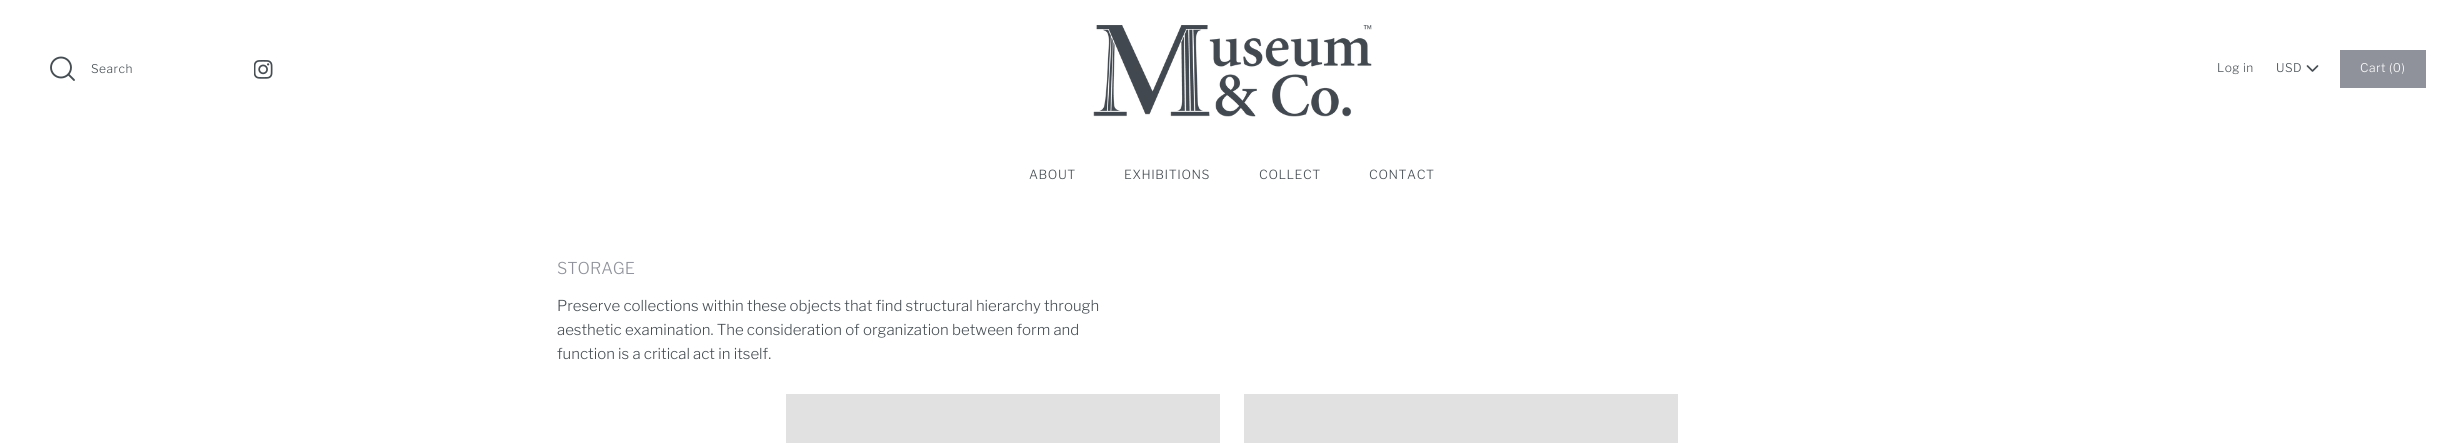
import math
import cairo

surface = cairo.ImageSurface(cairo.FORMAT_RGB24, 2463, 443)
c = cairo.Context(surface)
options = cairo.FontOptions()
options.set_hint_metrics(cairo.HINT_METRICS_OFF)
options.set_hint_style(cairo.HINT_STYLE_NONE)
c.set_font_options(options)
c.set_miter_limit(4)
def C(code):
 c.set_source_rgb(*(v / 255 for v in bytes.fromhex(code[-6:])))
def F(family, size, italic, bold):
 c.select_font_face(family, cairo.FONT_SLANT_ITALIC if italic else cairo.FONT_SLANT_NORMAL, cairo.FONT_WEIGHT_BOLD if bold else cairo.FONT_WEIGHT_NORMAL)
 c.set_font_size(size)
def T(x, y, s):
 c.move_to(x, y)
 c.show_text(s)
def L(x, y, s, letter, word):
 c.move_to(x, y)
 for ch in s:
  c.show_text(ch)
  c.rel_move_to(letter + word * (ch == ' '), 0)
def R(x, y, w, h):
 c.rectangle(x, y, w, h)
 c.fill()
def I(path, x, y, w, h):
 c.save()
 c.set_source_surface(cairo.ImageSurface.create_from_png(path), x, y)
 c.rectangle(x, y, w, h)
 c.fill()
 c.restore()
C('ffffff')
c.paint()
I('1.png',1093,25,279,92)
c.arc(61,67.5,10,0,2 * math.pi)
C('464e54')
c.set_line_width(1.9)
c.stroke()
c.new_path()
c.move_to(74,80)
c.line_to(68.5,74.5)
c.set_line_cap(cairo.LINE_CAP_ROUND)
c.set_line_join(cairo.LINE_JOIN_ROUND)
c.stroke()
F('Libre Franklin Light',12,0,0)
L(91,73,'Search',.5,0)
I('2.png',254,60,19,19)
L(2217,72,'Log in',.5,0)
L(2276,72,'USD',.5,0)
c.new_path()
c.move_to(2307.5,66)
c.line_to(2312.5,71)
c.line_to(2317.5,66)
c.set_line_width(1.7)
c.stroke()
C('8f929a')
R(2340,50,86,38)
C('ffffff')
L(2360,72,'Cart (0)',.5,0)
F('Libre Franklin Light',12.5,0,0)
C('464e54')
L(1029,179,'ABOUT',.6,0)
L(1124,179,'EXHIBITIONS',.6,0)
L(1259,179,'COLLECT',.6,0)
L(1369,179,'CONTACT',.6,0)
F('Libre Franklin Light',16.25,0,0)
C('8f929a')
T(557,274,'STORAGE')
F('Libre Franklin Light',15,0,0)
C('464e54')
T(557,311,'Preserve collections within these objects that find structural hierarchy through')
T(557,335,'aesthetic examination. The consideration of organization between form and')
T(557,359,'function is a critical act in itself.')
C('e1e1e1')
R(786,394,434,49)
R(1244,394,434,49)
surface.write_to_png('o.png')
